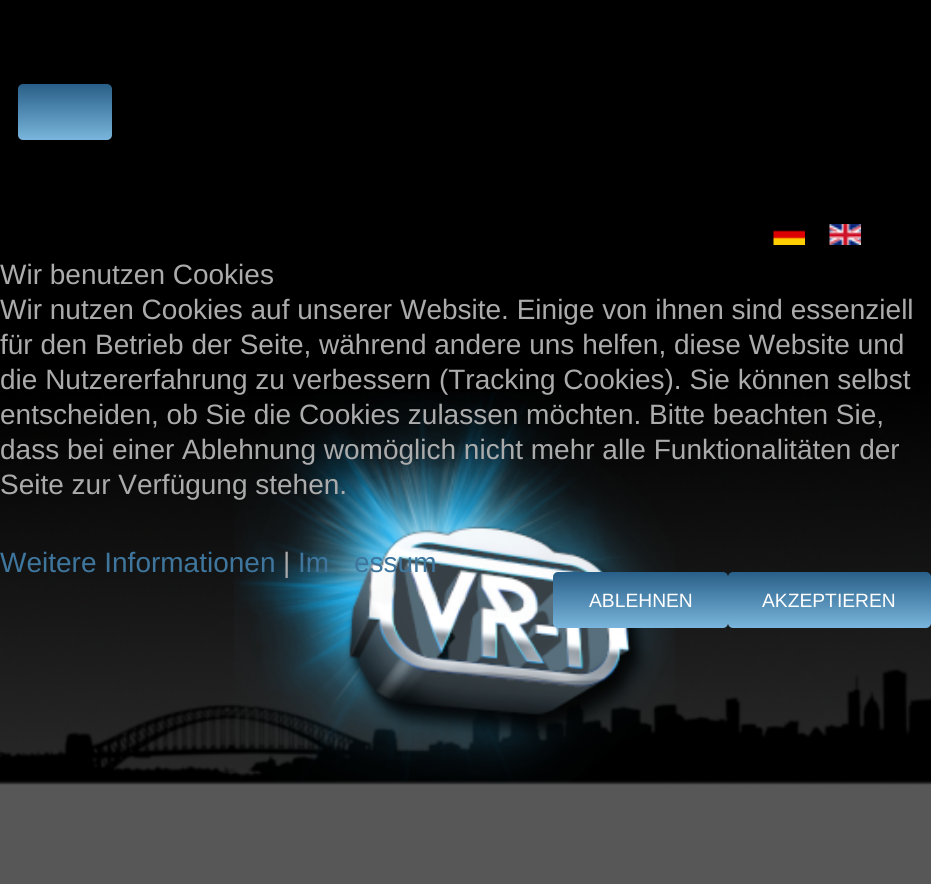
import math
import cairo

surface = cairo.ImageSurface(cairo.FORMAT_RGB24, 931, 884)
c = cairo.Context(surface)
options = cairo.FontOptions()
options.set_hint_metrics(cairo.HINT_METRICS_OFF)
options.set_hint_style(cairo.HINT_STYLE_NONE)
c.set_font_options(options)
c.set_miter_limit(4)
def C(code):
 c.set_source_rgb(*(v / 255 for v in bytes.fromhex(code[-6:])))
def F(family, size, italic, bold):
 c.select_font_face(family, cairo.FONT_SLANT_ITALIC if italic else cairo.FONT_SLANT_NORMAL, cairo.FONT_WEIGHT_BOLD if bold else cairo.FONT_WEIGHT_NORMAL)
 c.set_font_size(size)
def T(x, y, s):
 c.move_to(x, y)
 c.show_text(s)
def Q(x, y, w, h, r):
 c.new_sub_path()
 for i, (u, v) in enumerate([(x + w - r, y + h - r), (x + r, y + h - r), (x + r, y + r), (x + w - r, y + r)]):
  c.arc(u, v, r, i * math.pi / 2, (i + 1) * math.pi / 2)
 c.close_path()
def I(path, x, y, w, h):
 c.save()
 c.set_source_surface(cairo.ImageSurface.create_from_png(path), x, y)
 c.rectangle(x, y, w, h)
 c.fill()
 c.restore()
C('ffffff')
c.paint()
I('1.png',0,0,931,884)
gradient = cairo.LinearGradient(65,84,65,140)
gradient.add_color_stop_rgba(0,0.157,0.373,0.533,1)
gradient.add_color_stop_rgba(1,0.475,0.71,0.863,1)
c.set_source(gradient)
Q(18,84,94,56,5)
c.fill()
I('2.png',773,230,32,15)
I('3.png',829,224,32,21)
I('4.png',234,392,441,391)
F('Liberation Sans',28,0,0)
C('ababab')
T(0,284,'Wir benutzen Cookies')
T(0,319,'Wir nutzen Cookies auf unserer Website. Einige von ihnen sind essenziell')
T(0,354,'für den Betrieb der Seite, während andere uns helfen, diese Website und')
T(0,389,'die Nutzererfahrung zu verbessern (Tracking Cookies). Sie können selbst')
T(0,424,'entscheiden, ob Sie die Cookies zulassen möchten. Bitte beachten Sie,')
T(0,459,'dass bei einer Ablehnung womöglich nicht mehr alle Funktionalitäten der')
T(0,494,'Seite zur Verfügung stehen.')
C('3e769e')
T(0,572,'Weitere Informationen')
C('ababab')
T(283,572,'|')
C('3e769e')
T(298,572,'Im')
T(354,572,'essum')
gradient = cairo.LinearGradient(641,572,641,628)
gradient.add_color_stop_rgba(0,0.157,0.373,0.533,1)
gradient.add_color_stop_rgba(1,0.475,0.71,0.863,1)
c.set_source(gradient)
Q(553,572,175,56,5)
c.fill()
F('Liberation Sans',19.25,0,0)
C('ffffff')
T(589,607,'ABLEHNEN')
gradient = cairo.LinearGradient(830,572,830,628)
gradient.add_color_stop_rgba(0,0.157,0.373,0.533,1)
gradient.add_color_stop_rgba(1,0.475,0.71,0.863,1)
c.set_source(gradient)
Q(728,572,203,56,5)
c.fill()
C('ffffff')
T(762,607,'AKZEPTIEREN')
surface.write_to_png('o.png')
